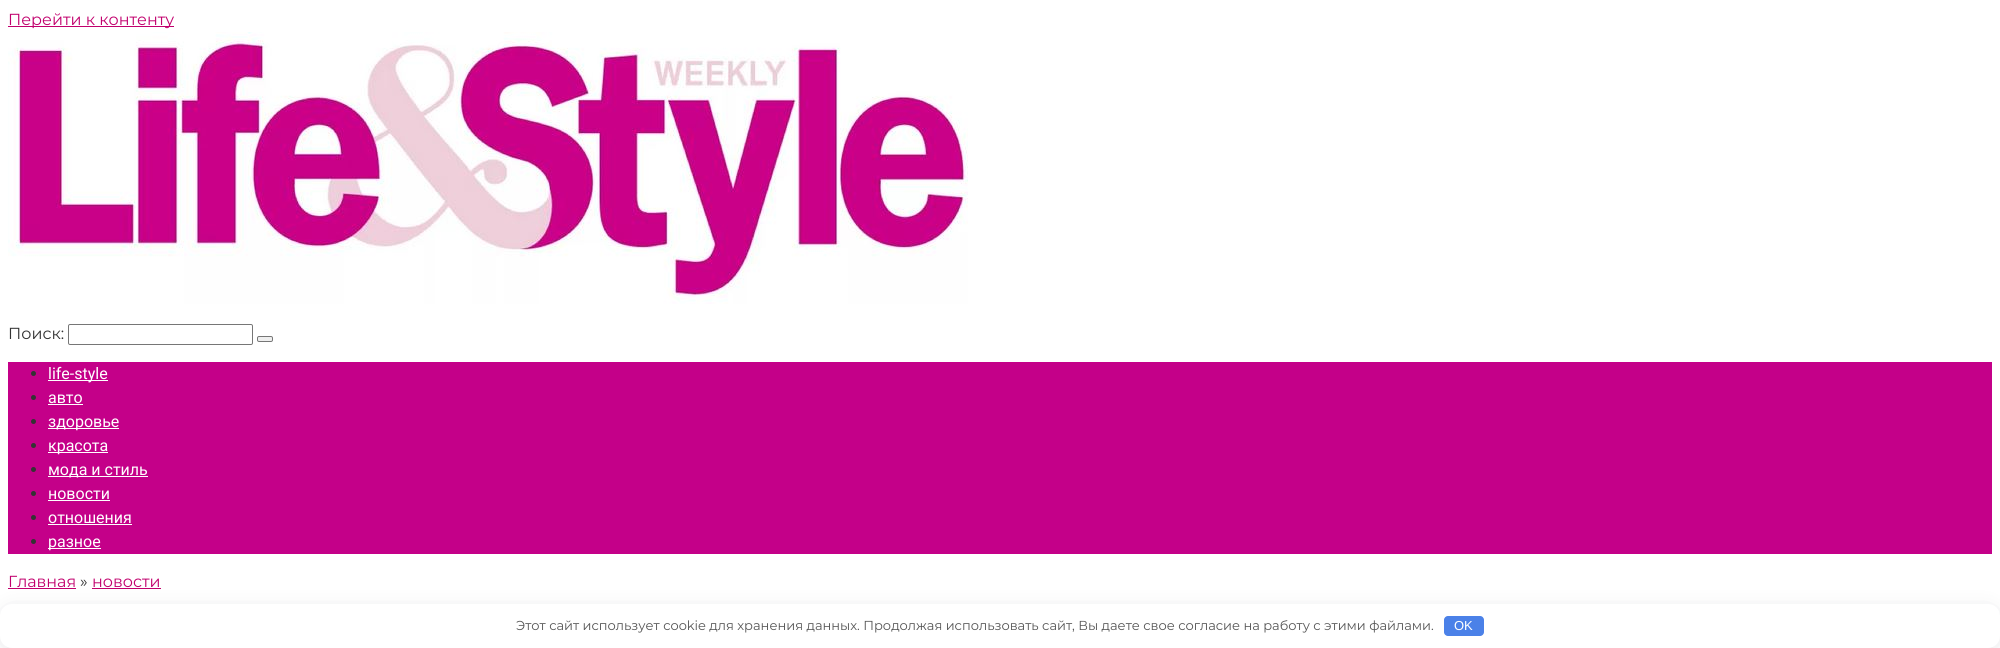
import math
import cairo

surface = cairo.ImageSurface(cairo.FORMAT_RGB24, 2000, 648)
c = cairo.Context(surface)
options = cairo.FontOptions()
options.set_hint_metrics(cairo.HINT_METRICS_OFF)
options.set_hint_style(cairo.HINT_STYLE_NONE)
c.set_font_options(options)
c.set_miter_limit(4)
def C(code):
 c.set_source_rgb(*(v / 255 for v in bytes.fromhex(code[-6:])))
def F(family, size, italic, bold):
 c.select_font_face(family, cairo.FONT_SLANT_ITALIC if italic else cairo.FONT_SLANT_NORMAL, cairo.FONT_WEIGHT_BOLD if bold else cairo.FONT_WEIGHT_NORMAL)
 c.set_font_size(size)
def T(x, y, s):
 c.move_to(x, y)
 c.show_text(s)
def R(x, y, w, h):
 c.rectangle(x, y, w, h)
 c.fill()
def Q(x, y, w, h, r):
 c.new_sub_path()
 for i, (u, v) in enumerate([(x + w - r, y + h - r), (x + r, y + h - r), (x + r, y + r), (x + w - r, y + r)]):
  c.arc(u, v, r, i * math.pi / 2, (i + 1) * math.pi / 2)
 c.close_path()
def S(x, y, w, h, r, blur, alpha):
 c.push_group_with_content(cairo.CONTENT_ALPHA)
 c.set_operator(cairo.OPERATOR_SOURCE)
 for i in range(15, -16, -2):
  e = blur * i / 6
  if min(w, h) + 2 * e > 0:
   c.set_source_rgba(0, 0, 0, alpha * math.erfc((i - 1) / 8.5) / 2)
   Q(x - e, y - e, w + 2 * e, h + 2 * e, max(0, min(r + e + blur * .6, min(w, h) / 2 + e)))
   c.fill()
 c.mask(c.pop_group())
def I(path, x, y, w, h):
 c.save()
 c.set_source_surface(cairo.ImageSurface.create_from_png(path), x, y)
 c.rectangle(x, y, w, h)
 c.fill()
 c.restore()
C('ffffff')
c.paint()
C('c1006d')
R(8,26,166,1)
F('Montserrat',16,0,0)
T(8,25,'Перейти к контенту')
I('1.png',8,32,960,272)
C('333333')
T(8,339,'Поиск:')
Q(68.5,324.5,184,20,1.5)
C('767676')
c.set_line_width(1)
c.stroke()
C('efefef')
Q(257.5,336.5,15,5,1.5)
c.fill_preserve()
C('767676')
c.stroke()
C('c40089')
R(8,362,1984,192)
C('333333')
c.arc(33.5,373.5,2.5,0,2 * math.pi)
c.fill()
C('ffffff')
R(48,380,60,1)
F('Roboto',16,0,0)
T(48,379,'life-style')
C('333333')
c.new_path()
c.arc(33.5,397.5,2.5,0,2 * math.pi)
c.fill()
C('ffffff')
T(48,403,'авто')
R(48,404,35,1)
C('333333')
c.new_path()
c.arc(33.5,421.5,2.5,0,2 * math.pi)
c.fill()
C('ffffff')
R(48,428,71,1)
T(48,427,'здоровье')
C('333333')
c.new_path()
c.arc(33.5,445.5,2.5,0,2 * math.pi)
c.fill()
C('ffffff')
R(48,452,60,1)
T(48,451,'красота')
C('333333')
c.new_path()
c.arc(33.5,469.5,2.5,0,2 * math.pi)
c.fill()
C('ffffff')
R(48,476,100,1)
T(48,475,'мода и стиль')
C('333333')
c.new_path()
c.arc(33.5,493.5,2.5,0,2 * math.pi)
c.fill()
C('ffffff')
T(48,499,'новости')
R(48,500,62,1)
C('333333')
c.new_path()
c.arc(33.5,517.5,2.5,0,2 * math.pi)
c.fill()
C('ffffff')
T(48,523,'отношения')
R(48,524,84,1)
C('333333')
c.new_path()
c.arc(33.5,541.5,2.5,0,2 * math.pi)
c.fill()
C('ffffff')
R(48,548,53,1)
T(48,547,'разное')
F('Montserrat',16,0,0)
C('c1006d')
T(8,587,'Главная')
R(8,588,68,1)
C('333333')
T(80,587,'»')
C('c1006d')
T(92,587,'новости')
R(92,588,69,1)
C('292c38')
S(5,612,1990,34,7,10,.2)
C('ffffff')
Q(0,604,2000,44,12)
c.fill()
F('Montserrat',13,0,0)
C('555555')
T(516,630,'Этот сайт использует cookie для хранения данных. Продолжая использовать сайт, Вы даете свое согласие на работу с этими файлами.')
C('4b81e8')
Q(1444,616,40,20,4)
c.fill()
F('Liberation Sans',13,0,0)
C('ffffff')
T(1454,630,'OK')
surface.write_to_png('o.png')
